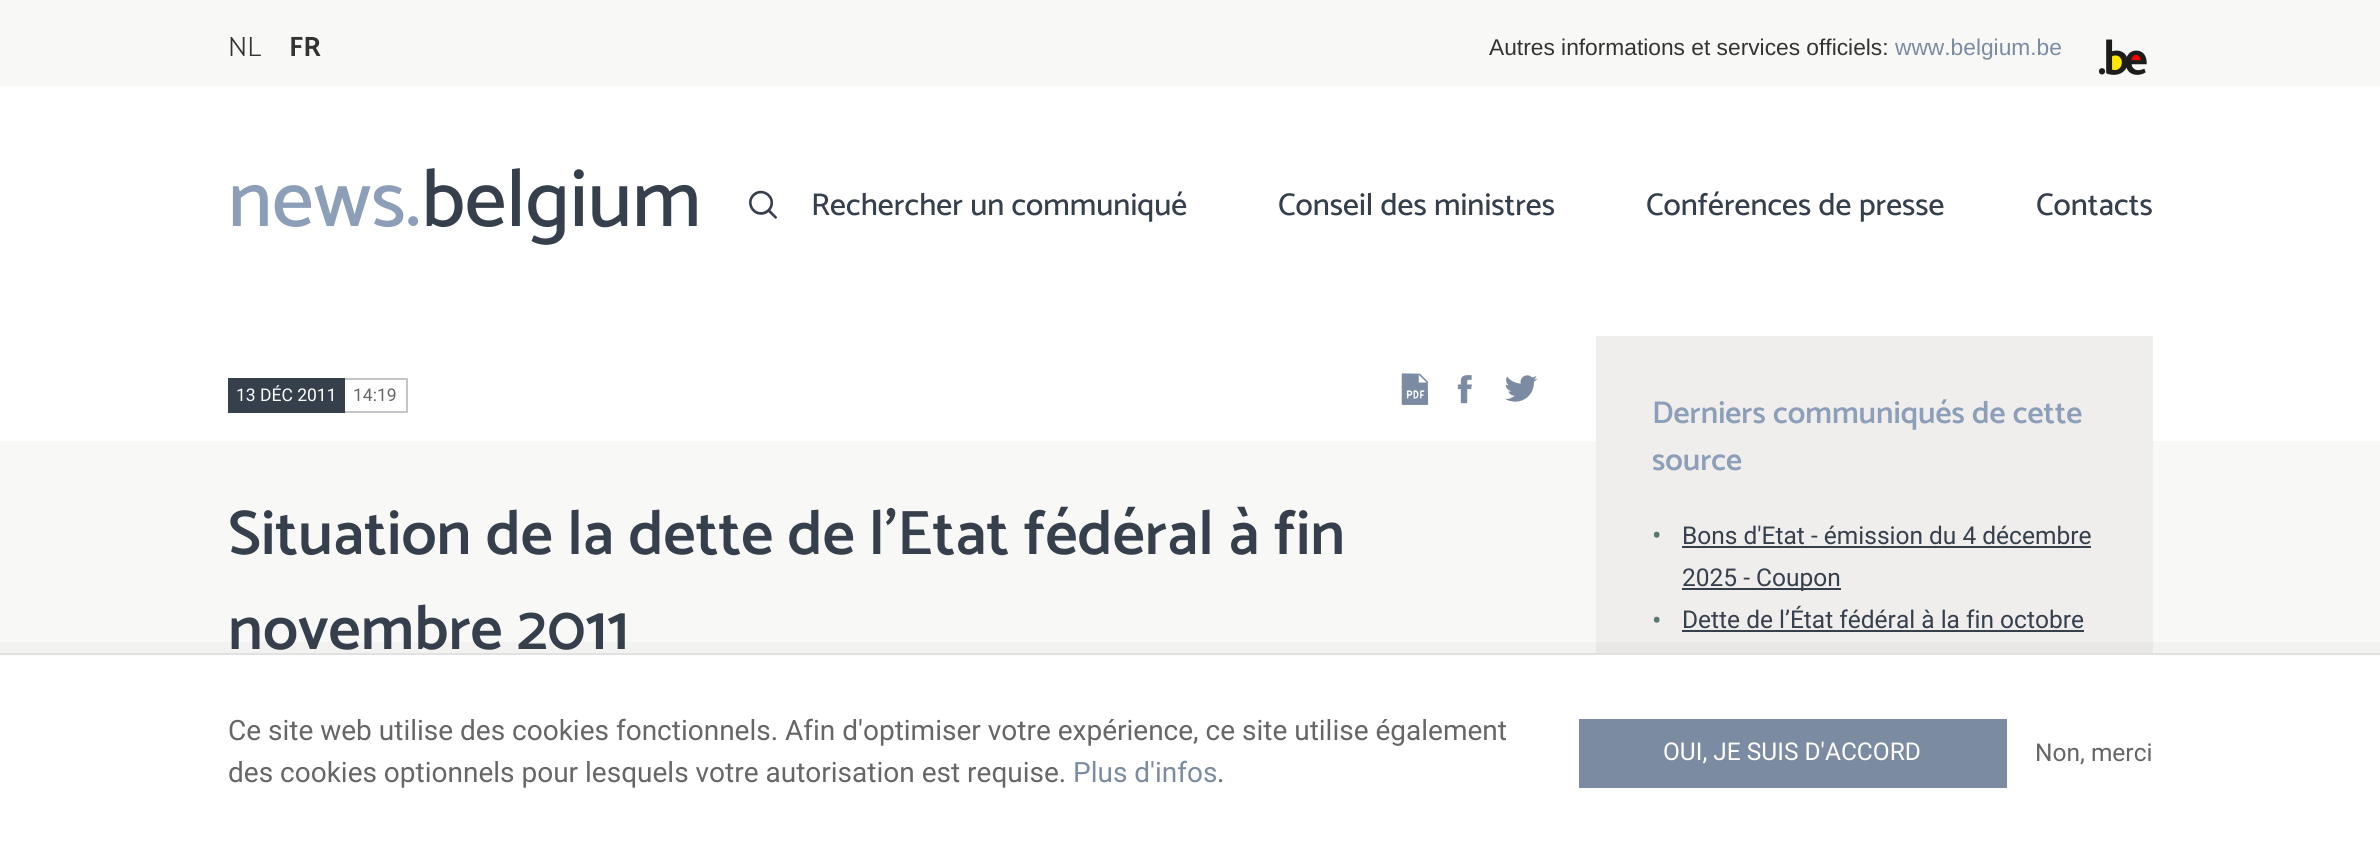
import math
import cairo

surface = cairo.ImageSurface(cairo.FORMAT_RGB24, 2380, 849)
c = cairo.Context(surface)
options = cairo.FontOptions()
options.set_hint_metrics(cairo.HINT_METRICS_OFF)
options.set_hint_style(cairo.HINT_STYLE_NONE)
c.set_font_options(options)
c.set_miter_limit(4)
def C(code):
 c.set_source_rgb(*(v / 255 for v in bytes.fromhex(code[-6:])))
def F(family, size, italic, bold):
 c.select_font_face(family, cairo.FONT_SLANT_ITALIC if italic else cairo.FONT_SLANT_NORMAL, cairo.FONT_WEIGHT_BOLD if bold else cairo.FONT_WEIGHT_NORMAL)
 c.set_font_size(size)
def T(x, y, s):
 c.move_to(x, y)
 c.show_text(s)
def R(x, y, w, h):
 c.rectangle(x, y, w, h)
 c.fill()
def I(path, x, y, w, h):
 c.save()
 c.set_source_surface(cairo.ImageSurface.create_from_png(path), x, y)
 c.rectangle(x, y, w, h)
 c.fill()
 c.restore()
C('f8f8f7')
c.paint()
F('Catamaran Light',28,0,0)
C('333333')
T(228,56,'NL')
F('Catamaran',28,0,1)
T(289,56,'FR')
F('Liberation Sans',22.75,0,0)
T(1489,55,'Autres informations et services officiels:')
C('7b8ba2')
T(1895,55,'www.belgium.be')
I('1.png',2098,39,49,36)
C('ffffff')
R(0,86,2380,355)
F('Catamaran Medium',82,0,0)
C('8c9eb8')
T(228,226,'news.')
C('363f4c')
T(421,226,'belgium')
I('2.png',749,190,28,29)
F('Catamaran Medium',31.5,0,0)
T(811,215,'Rechercher un communiqué')
T(1278,215,'Conseil des ministres')
T(1646,215,'Conférences de presse')
T(2036,215,'Contacts')
R(228,378,117,35)
F('Roboto',17.5,0,0)
C('ffffff')
T(236,401,'13 DÉC 2011')
C('c2c5c9')
R(345,378,63,2)
R(406,378,2,35)
R(345,411,63,2)
C('666666')
T(353,401,'14:19')
I('3.png',1401,373,28,32)
I('4.png',1457,375,15,29)
I('5.png',1504,375,34,27)
F('Catamaran SemiBold',63,0,0)
C('363f4c')
T(228,554,'Situation de la dette de l\'Etat fédéral à fin')
T(228,649,'novembre 2011')
C('efeeed')
R(1596,336,557,317)
F('Catamaran SemiBold',31.5,0,0)
C('8c9eb8')
T(1652,423,'Derniers communiqués de cette')
T(1652,470,'source')
F('Roboto',28,0,0)
C('56786e')
T(1652,545,'•')
F('Roboto',24.5,0,0)
C('363f4c')
T(1682,544,'Bons d\'Etat - émission du 4 décembre')
R(1682,546,409,2)
R(1682,588,159,2)
T(1682,586,'2025 - Coupon')
F('Roboto',28,0,0)
C('56786e')
T(1652,630,'•')
F('Roboto',24.5,0,0)
C('363f4c')
T(1682,628,'Dette de l’État fédéral à la fin octobre')
R(1682,630,402,2)
c.set_source_rgba(0.2,0.2,0.2,0.03)
c.set_fill_rule(cairo.FILL_RULE_EVEN_ODD)
c.new_path()
c.move_to(-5,642)
c.line_to(-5,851)
c.line_to(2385,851)
c.line_to(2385,642)
c.close_path()
c.move_to(0,653)
c.line_to(0,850)
c.line_to(2380,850)
c.line_to(2380,653)
c.close_path()
c.fill()
C('ffffff')
R(0,655,2380,194)
C('e1e1e1')
R(0,653,2380,2)
F('Roboto',28,0,0)
C('666666')
T(228,740,'Ce site web utilise des cookies fonctionnels. Afin d\'optimiser votre expérience, ce site utilise également')
T(228,782,'des cookies optionnels pour lesquels votre autorisation est requise.')
C('7b8ba2')
T(1073,782,'Plus d\'infos')
C('666666')
T(1217,782,'.')
C('7b8ba2')
R(1579,719,428,69)
F('Roboto',24.5,0,0)
C('ffffff')
T(1663,760,'OUI, JE SUIS D\'ACCORD')
C('666666')
T(2035,761,'Non, merci')
surface.write_to_png('o.png')
